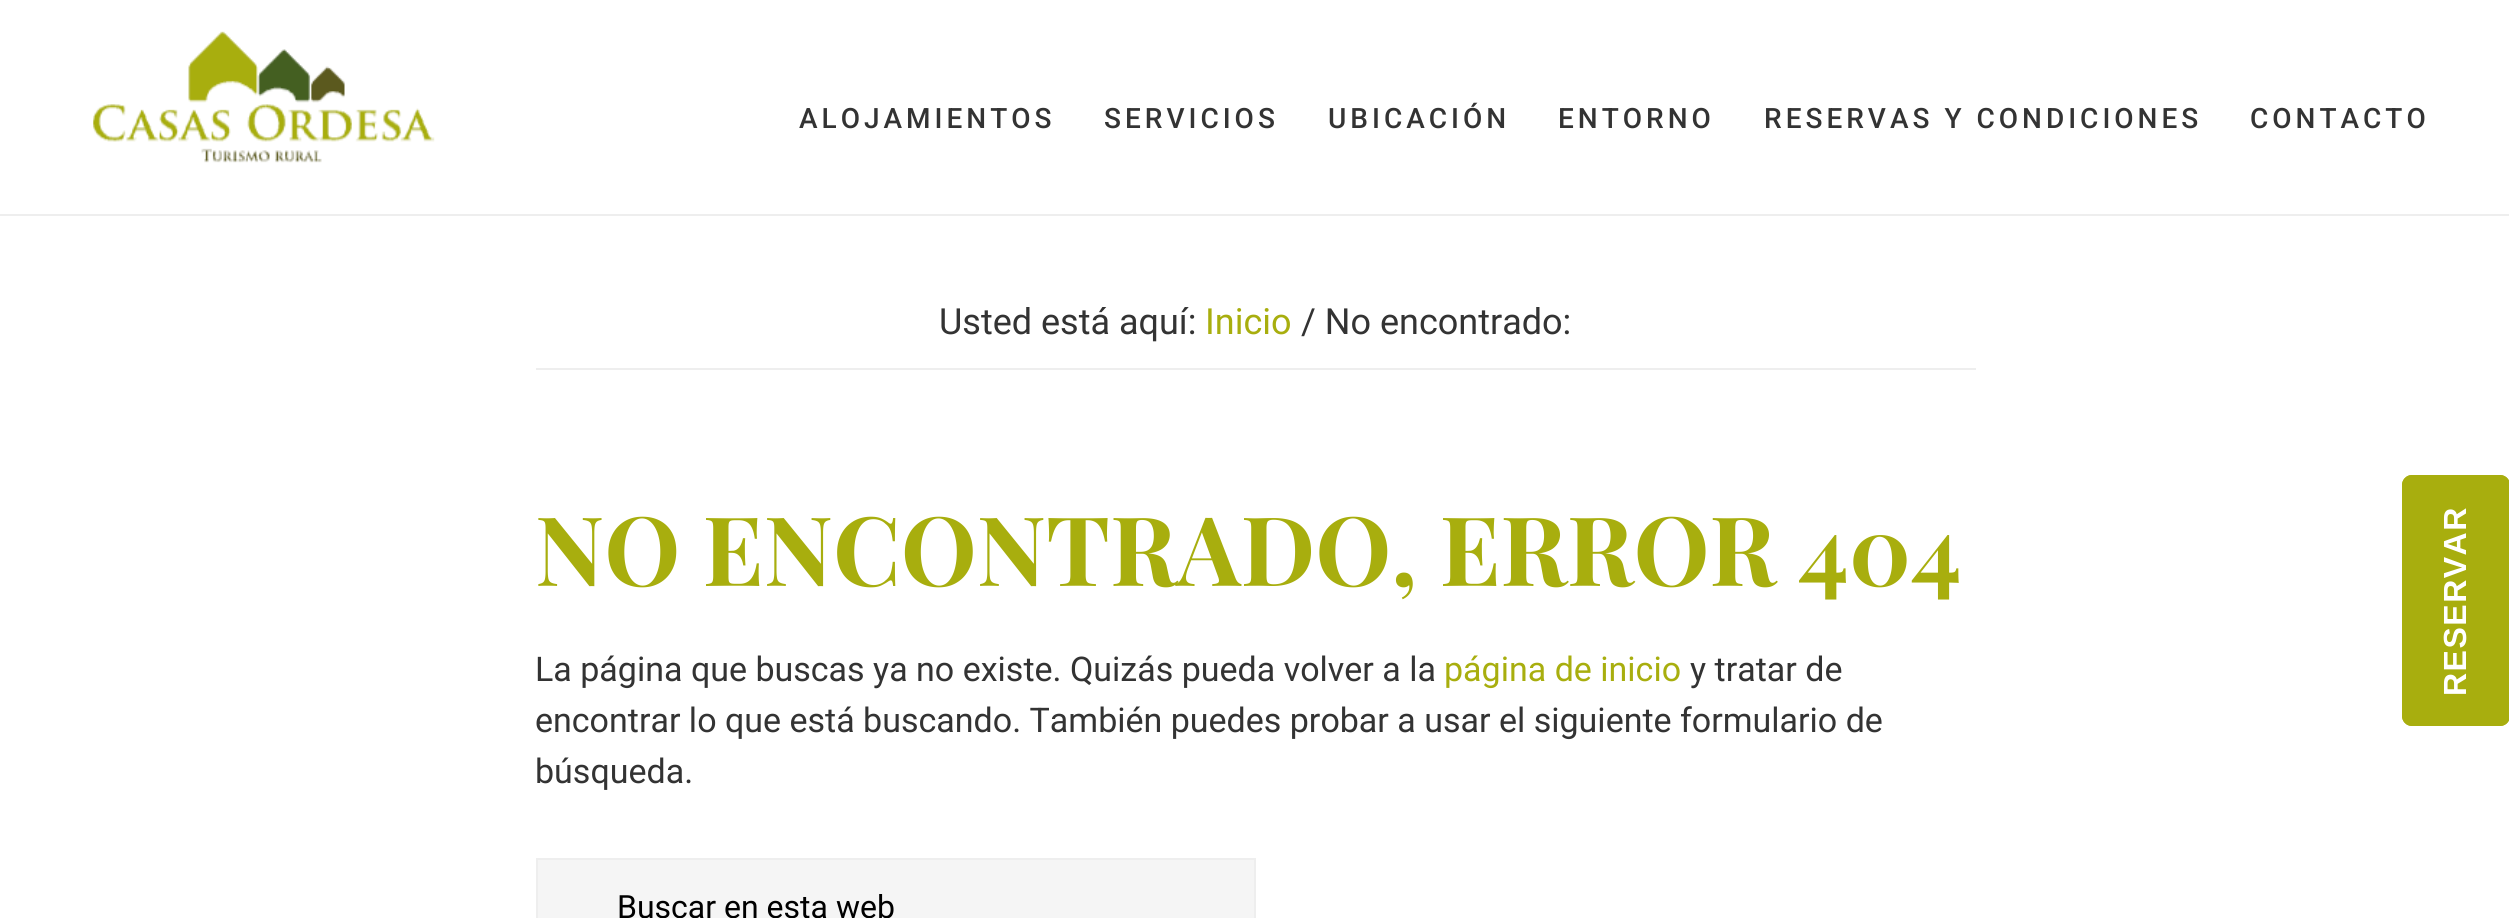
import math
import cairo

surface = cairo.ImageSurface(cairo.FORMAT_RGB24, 2509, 918)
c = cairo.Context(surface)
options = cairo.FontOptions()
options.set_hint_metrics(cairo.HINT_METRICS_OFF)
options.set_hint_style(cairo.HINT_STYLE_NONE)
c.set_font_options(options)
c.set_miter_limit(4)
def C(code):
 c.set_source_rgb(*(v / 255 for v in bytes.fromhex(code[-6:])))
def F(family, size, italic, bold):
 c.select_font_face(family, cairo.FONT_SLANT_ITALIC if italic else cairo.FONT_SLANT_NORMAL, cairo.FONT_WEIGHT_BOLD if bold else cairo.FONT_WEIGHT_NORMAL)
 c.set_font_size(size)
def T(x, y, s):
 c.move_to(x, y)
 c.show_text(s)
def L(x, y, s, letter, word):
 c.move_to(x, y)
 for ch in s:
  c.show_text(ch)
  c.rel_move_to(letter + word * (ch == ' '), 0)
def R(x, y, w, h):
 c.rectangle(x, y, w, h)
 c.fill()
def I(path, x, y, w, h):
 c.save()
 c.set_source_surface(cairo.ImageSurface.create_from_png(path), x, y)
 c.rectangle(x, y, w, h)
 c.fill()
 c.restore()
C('ffffff')
c.paint()
C('eeeeee')
R(0,214,2509,2)
I('1.png',93,31,342,132)
F('Roboto Medium',28,0,0)
C('333333')
L(799,128,'ALOJAMIENTOS',4,0)
L(1104,128,'SERVICIOS',4,0)
L(1328,128,'UBICACIÓN',4,0)
L(1558,128,'ENTORNO',4,0)
L(1764,128,'RESERVAS Y CONDICIONES',4,0)
L(2250,128,'CONTACTO',4,0)
C('eeeeee')
R(536,368,1440,2)
F('Roboto',36,0,0)
C('333333')
T(939,334,'Usted está aquí:')
C('a8ae0e')
T(1205,334,'Inicio')
C('333333')
T(1301,334,'/ No encontrado:')
F('Playfair Display',96,0,1)
C('a8ae0e')
T(535,586,'NO ENCONTRADO, ERROR 404')
F('Roboto',34,0,0)
C('333333')
T(535,681,'La página que buscas ya no existe. Quizás pueda volver a la')
C('a8ae0e')
T(1444,681,'página de inicio')
C('333333')
T(1690,681,'y tratar de')
T(535,732,'encontrar lo que está buscando. También puedes probar a usar el siguiente formulario de')
T(535,783,'búsqueda.')
C('f5f5f5')
c.rectangle(537,859,718,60)
c.fill_preserve()
C('eeeeee')
c.stroke()
F('Roboto',32,0,0)
C('000000')
T(617,918,'Buscar en esta web')
C('a8ae0e')
c.new_path()
c.move_to(2402,716)
c.line_to(2402,485)
c.curve_to(2402,480,2406,475,2412,475)
c.line_to(2500,475)
c.curve_to(2506,475,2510,480,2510,485)
c.line_to(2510,716)
c.curve_to(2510,721,2506,726,2500,726)
c.line_to(2412,726)
c.curve_to(2406,726,2402,721,2402,716)
c.close_path()
c.fill()
c.new_path()
c.move_to(2407,716)
c.line_to(2407,485)
c.curve_to(2407,482.5,2409,480,2412,480)
c.line_to(2500,480)
c.curve_to(2503,480,2505,482.5,2505,485)
c.line_to(2505,716)
c.curve_to(2505,718.5,2503,721,2500,721)
c.line_to(2412,721)
c.curve_to(2409,721,2407,718.5,2407,716)
c.close_path()
c.set_line_width(10)
c.stroke()
F('Liberation Sans',32,0,1)
C('ffffff')
c.save()
c.translate(2466,696)
c.rotate(-90 * math.pi / 180)
L(0,0,'RESERVAR',1.5,0)
c.restore()
surface.write_to_png('o.png')
